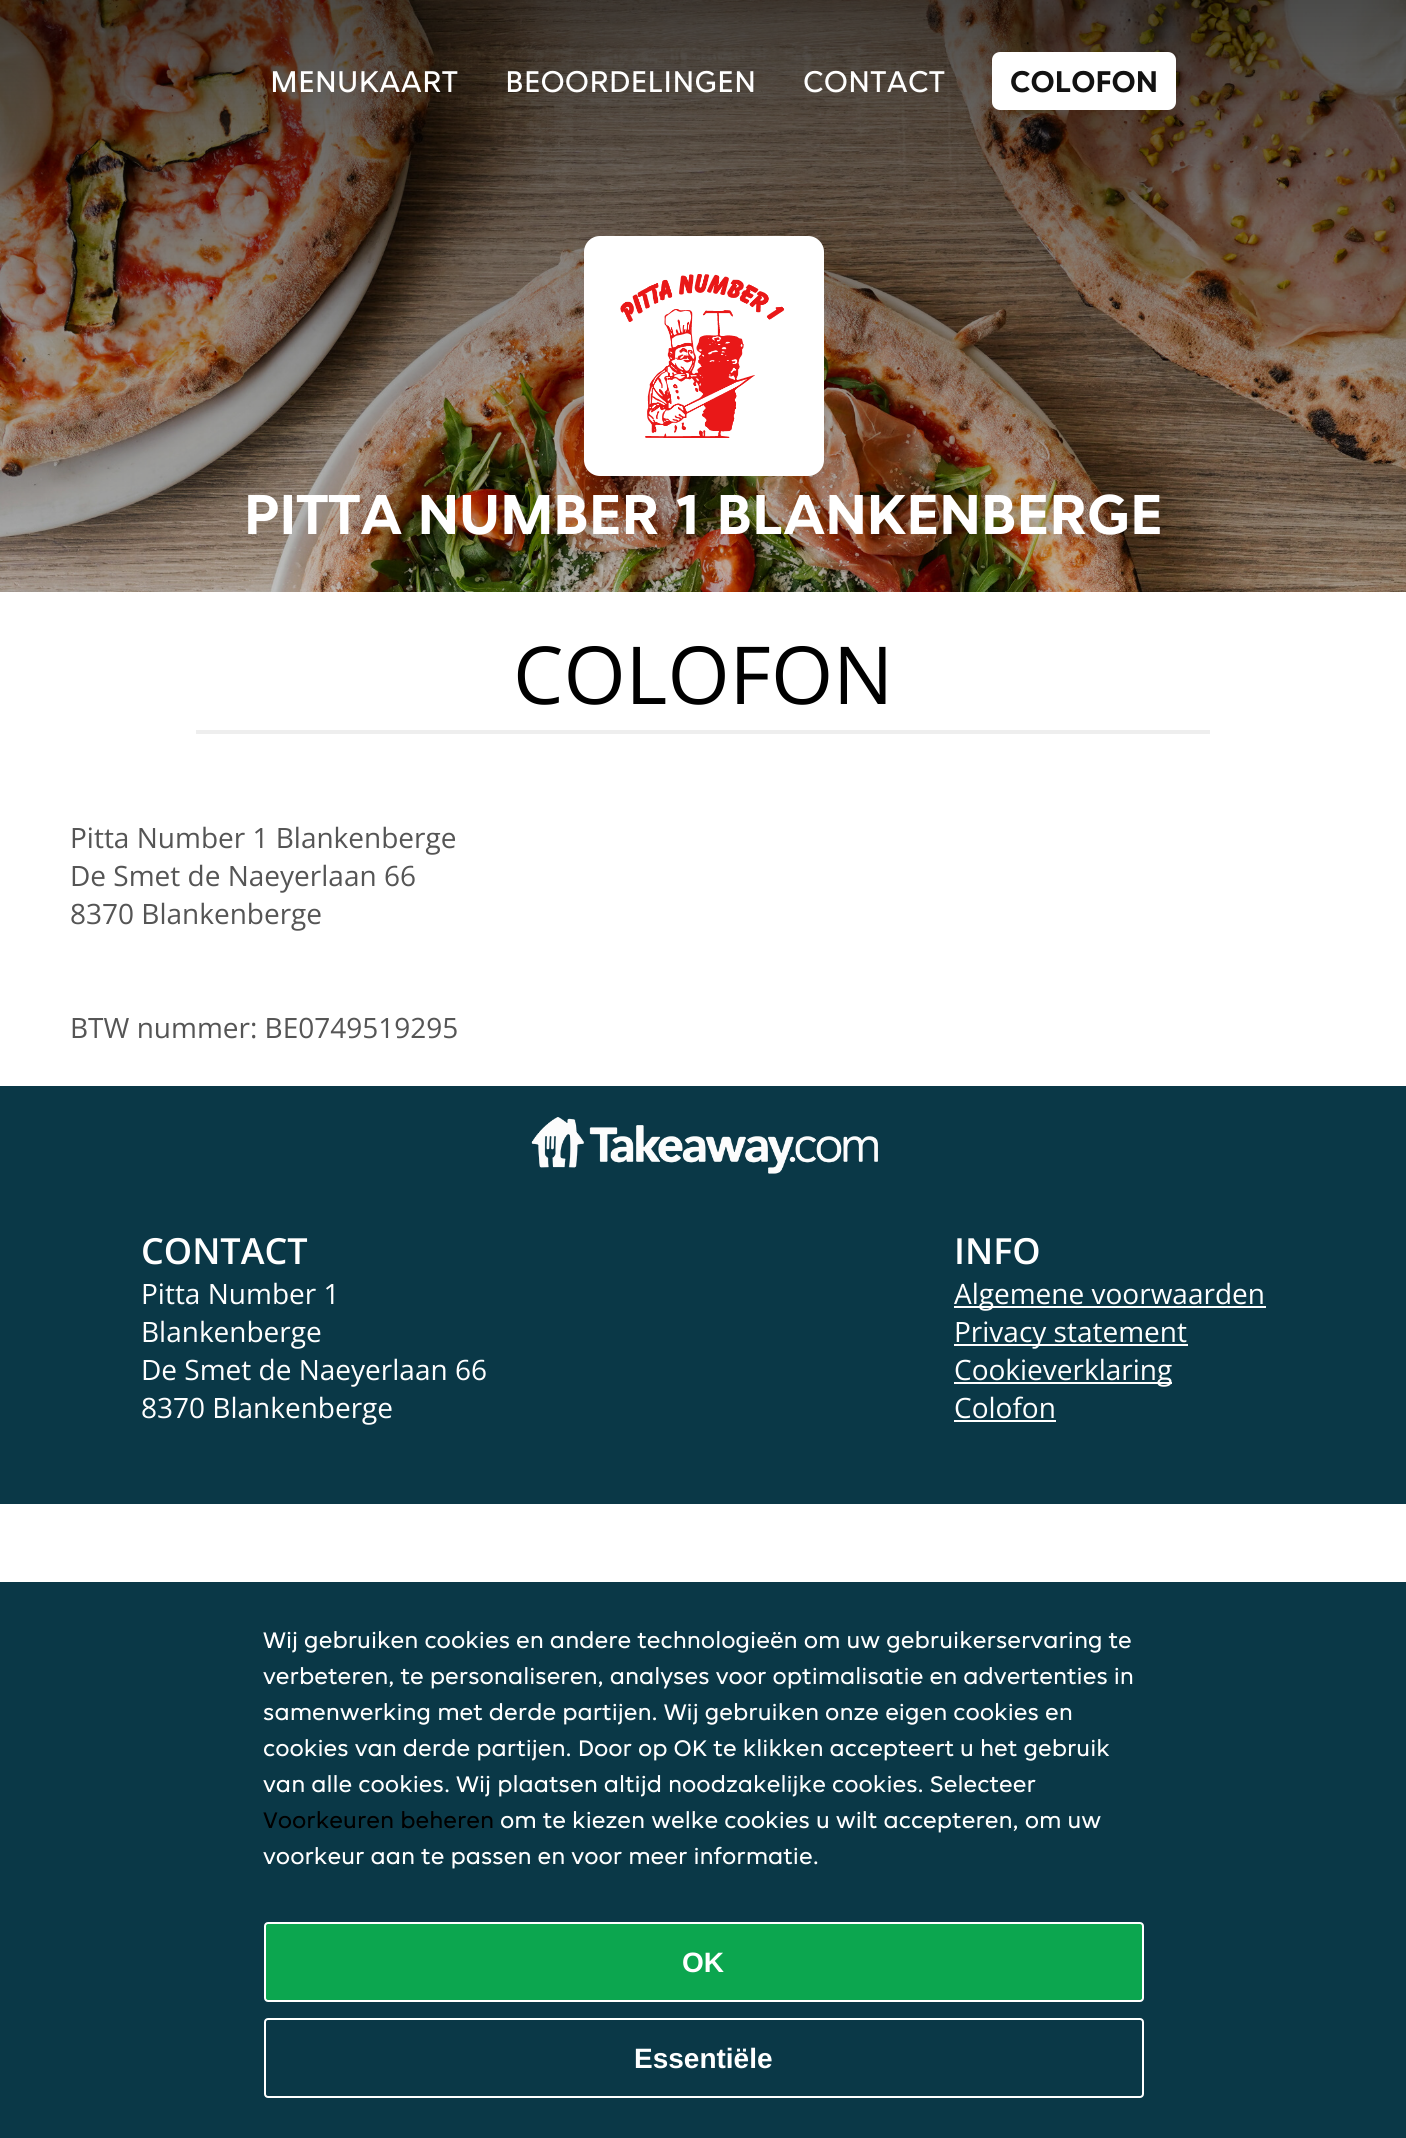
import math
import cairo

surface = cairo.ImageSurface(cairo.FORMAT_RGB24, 1406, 2138)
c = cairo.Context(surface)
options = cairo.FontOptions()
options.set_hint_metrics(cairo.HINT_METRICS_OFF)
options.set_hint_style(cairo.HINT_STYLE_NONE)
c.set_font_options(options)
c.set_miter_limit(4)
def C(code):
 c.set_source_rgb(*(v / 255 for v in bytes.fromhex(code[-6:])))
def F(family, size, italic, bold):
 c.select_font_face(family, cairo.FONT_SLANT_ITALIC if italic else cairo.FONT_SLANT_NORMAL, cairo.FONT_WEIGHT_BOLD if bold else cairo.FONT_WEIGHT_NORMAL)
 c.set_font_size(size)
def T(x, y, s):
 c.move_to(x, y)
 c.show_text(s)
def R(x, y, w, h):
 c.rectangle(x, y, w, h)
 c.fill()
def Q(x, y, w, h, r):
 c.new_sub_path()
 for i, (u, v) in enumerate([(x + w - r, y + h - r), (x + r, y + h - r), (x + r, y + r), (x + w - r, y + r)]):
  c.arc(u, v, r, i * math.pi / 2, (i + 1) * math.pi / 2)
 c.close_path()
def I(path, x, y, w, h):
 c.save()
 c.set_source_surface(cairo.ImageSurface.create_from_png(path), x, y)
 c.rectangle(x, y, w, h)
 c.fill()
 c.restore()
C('ffffff')
c.paint()
I('1.png',0,0,1406,592)
gradient = cairo.LinearGradient(703,0,703,1000)
gradient.add_color_stop_rgba(0,0,0,0,.7)
gradient.add_color_stop_rgba(.33,0,0,0,.4)
gradient.add_color_stop_rgba(.67,0,0,0,.2)
gradient.add_color_stop_rgba(1,0,0,0,0)
c.set_source(gradient)
R(0,0,1406,592)
F('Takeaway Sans',32,0,0)
C('ffffff')
T(270,92,'MENUKAART')
T(505,92,'BEOORDELINGEN')
T(803,92,'CONTACT')
Q(992,52,184,58,8)
c.fill()
F('Takeaway Sans',32,0,1)
C('121212')
T(1010,92,'COLOFON')
C('ffffff')
Q(584,236,240,240,16)
c.fill()
I('2.png',620,274,165,164)
F('Takeaway Sans',60,0,1)
T(244,534,'PITTA NUMBER 1 BLANKENBERGE')
F('Open Sans',80,0,0)
C('000000')
T(513,704,'COLOFON')
C('eeeeee')
R(196,730,1014,4)
F('Open Sans',28,0,0)
C('555555')
T(70,848,'Pitta Number 1 Blankenberge')
T(70,886,'De Smet de Naeyerlaan 66')
T(70,924,'8370 Blankenberge')
T(70,1038,'BTW nummer: BE0749519295')
C('0a3847')
R(0,1086,1406,418)
I('3.png',531,1117,347,57)
F('Open Sans SemiBold',36,0,0)
C('ffffff')
T(141,1264,'CONTACT')
F('Open Sans',28,0,0)
T(141,1304,'Pitta Number 1')
T(141,1342,'Blankenberge')
T(141,1380,'De Smet de Naeyerlaan 66')
T(141,1418,'8370 Blankenberge')
F('Open Sans SemiBold',36,0,0)
T(954,1264,'INFO')
R(954,1306,312,2)
F('Open Sans',28,0,0)
T(954,1304,'Algemene voorwaarden')
R(954,1344,234,2)
T(954,1342,'Privacy statement')
R(954,1382,218,2)
T(954,1380,'Cookieverklaring')
T(954,1418,'Colofon')
R(954,1420,102,2)
C('0a3847')
R(0,1582,1406,556)
F('Takeaway Sans',24,0,0)
C('ffffff')
T(263,1648,'Wij gebruiken cookies en andere technologieën om uw gebruikerservaring te')
T(263,1684,'verbeteren, te personaliseren, analyses voor optimalisatie en advertenties in')
T(263,1720,'samenwerking met derde partijen. Wij gebruiken onze eigen cookies en')
T(263,1756,'cookies van derde partijen. Door op OK te klikken accepteert u het gebruik')
T(263,1792,'van alle cookies. Wij plaatsen altijd noodzakelijke cookies. Selecteer')
C('000000')
T(263,1828,'Voorkeuren beheren')
C('ffffff')
T(500,1828,'om te kiezen welke cookies u wilt accepteren, om uw')
T(263,1864,'voorkeur aan te passen en voor meer informatie.')
C('0ca64f')
Q(265,1923,878,78,3)
c.fill_preserve()
C('ffffff')
c.stroke()
F('Liberation Sans',28,0,1)
T(682,1972,'OK')
Q(265,2019,878,78,3)
c.stroke()
T(634,2068,'Essentiële')
surface.write_to_png('o.png')
